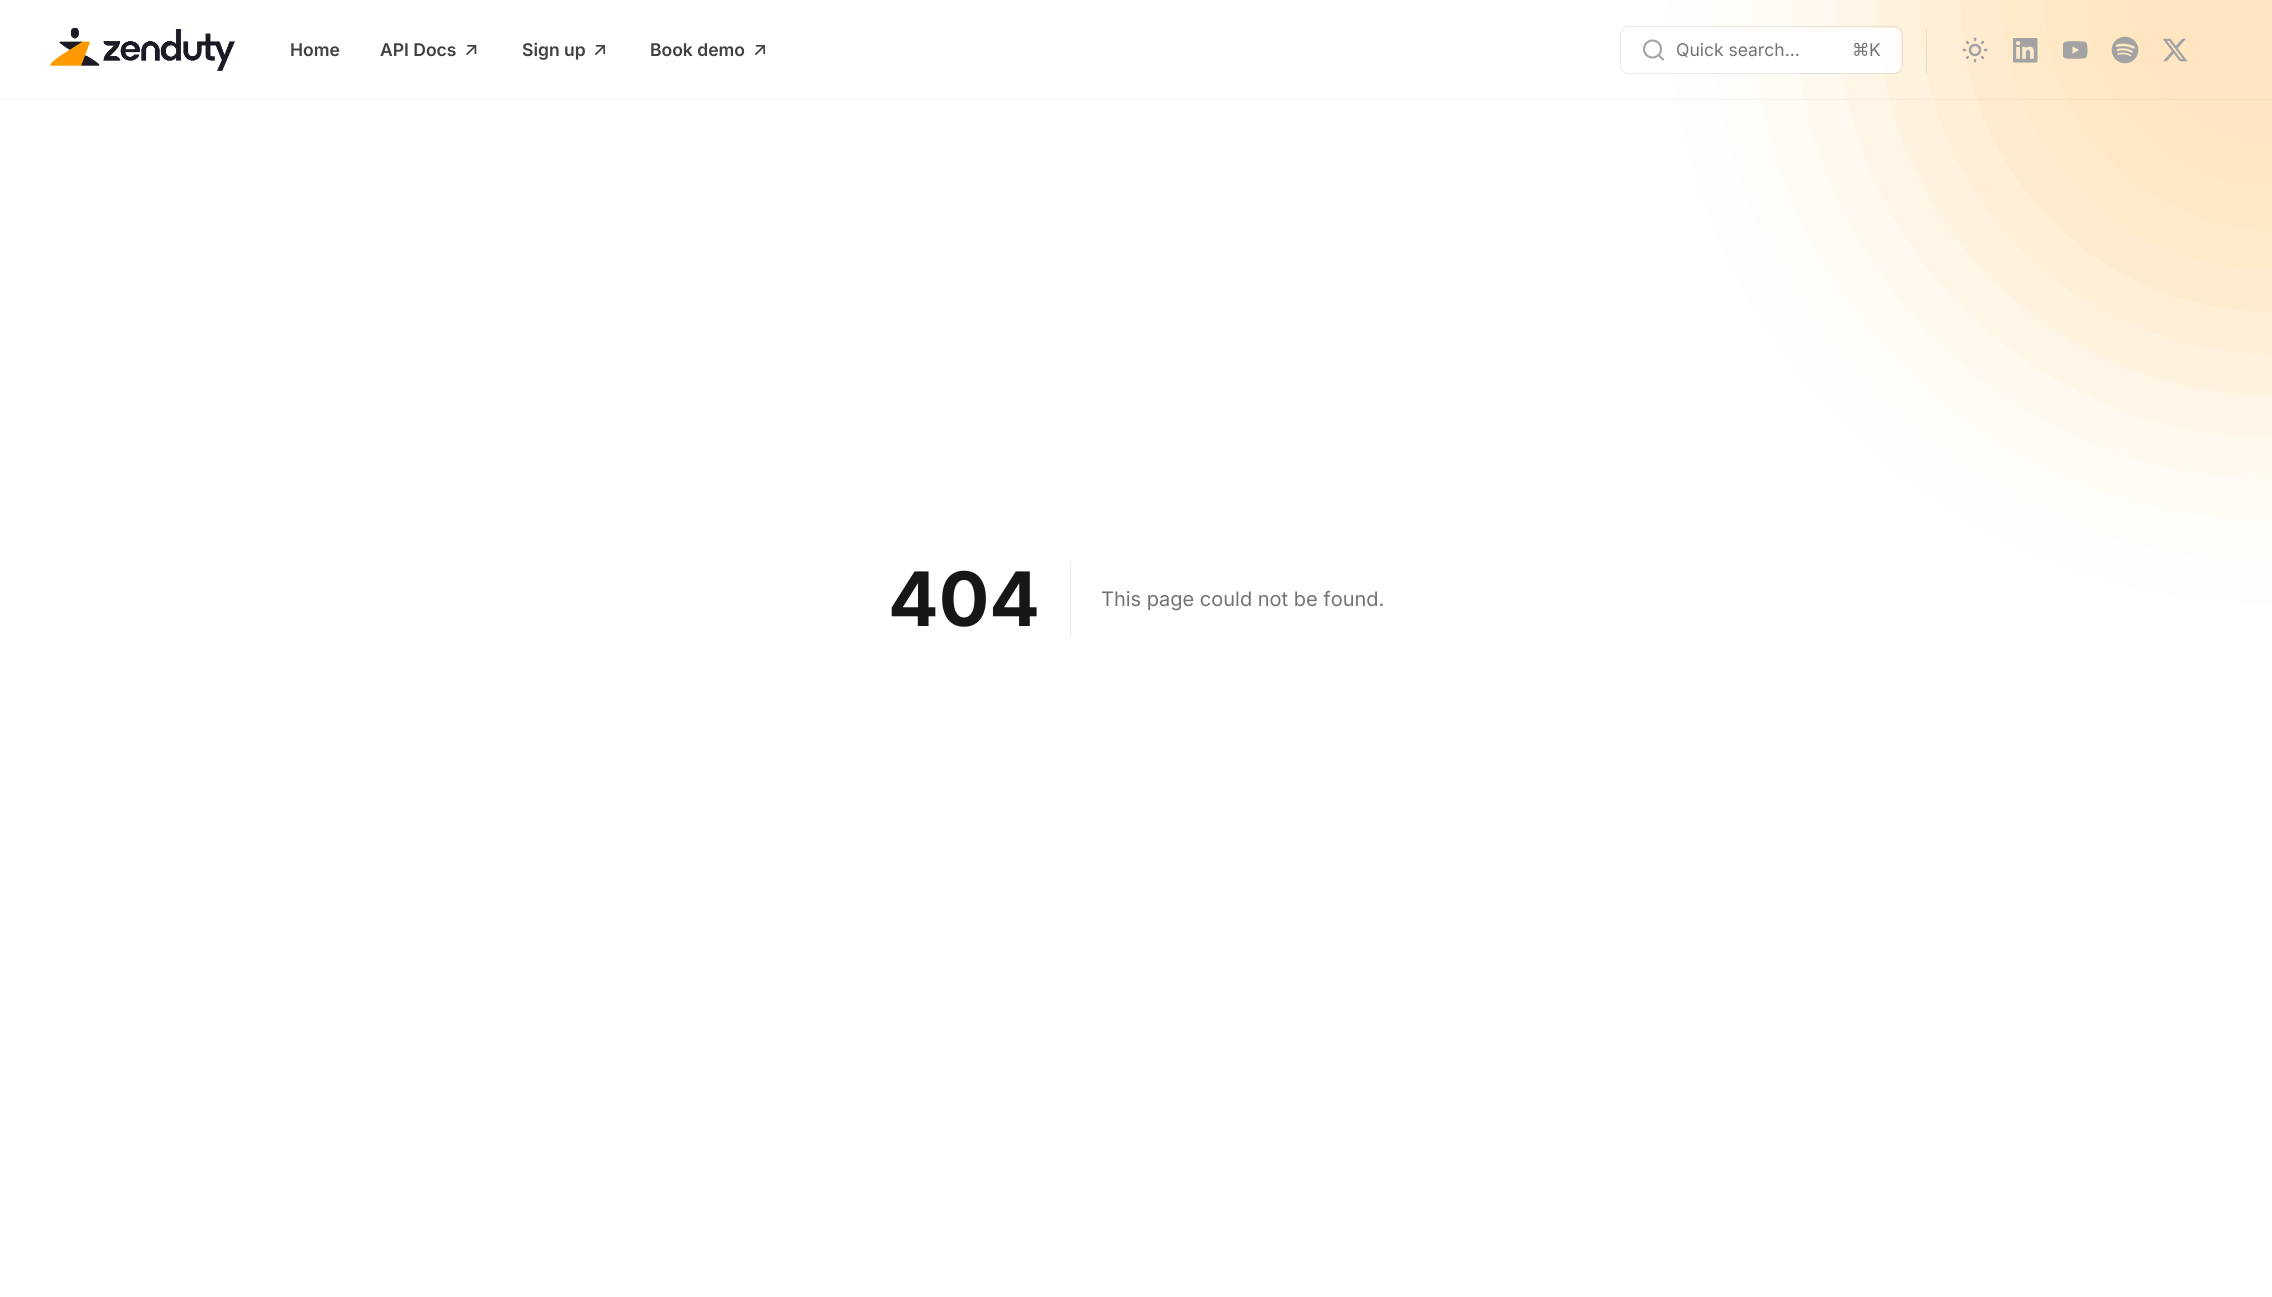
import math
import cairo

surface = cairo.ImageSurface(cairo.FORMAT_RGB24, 2272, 1297)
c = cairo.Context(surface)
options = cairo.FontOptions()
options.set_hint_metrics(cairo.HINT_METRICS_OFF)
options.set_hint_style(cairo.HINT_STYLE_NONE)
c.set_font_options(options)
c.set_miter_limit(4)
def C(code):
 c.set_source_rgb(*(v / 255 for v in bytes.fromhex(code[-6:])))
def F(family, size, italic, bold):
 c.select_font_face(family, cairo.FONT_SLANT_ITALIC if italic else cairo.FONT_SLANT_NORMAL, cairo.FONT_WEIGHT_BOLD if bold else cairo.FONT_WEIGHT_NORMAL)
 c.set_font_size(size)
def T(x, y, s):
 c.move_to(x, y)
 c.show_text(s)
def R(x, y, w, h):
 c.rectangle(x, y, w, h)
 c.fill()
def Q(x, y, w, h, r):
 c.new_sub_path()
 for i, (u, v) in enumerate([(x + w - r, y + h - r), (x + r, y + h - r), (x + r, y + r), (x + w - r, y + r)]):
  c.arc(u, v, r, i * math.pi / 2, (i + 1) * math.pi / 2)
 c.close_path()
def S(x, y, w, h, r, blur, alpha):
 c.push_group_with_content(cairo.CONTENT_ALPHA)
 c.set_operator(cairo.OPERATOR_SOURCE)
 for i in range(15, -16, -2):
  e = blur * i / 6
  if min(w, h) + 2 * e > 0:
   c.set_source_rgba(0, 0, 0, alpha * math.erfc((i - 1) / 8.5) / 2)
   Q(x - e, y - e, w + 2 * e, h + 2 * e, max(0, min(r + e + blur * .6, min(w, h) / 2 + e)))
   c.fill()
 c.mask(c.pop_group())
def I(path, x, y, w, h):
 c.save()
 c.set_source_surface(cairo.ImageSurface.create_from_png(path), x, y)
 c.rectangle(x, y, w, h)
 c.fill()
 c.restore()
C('ffffff')
c.paint()
C('fecd80')
S(1898,-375,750,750,375,125,.5)
c.set_source_rgba(0.09,0.09,0.09,0.05)
R(0,99,2272,1)
I('1.png',50,28,185,43)
F('Inter SemiBold',17.5,0,0)
C('404040')
T(290,56,'Home')
T(380,56,'API Docs')
I('2.png',466,45,11,10)
T(522,56,'Sign up')
I('3.png',595,45,10,10)
T(650,56,'Book demo')
I('3.png',755,45,10,10)
Q(1620.5,26.5,282,47,8.5)
c.set_source_rgba(0.09,0.09,0.09,0.1)
c.set_line_width(1)
c.stroke()
c.set_source_rgba(1,1,1,0.95)
Q(1621,28,280,45,8)
c.fill()
c.arc(1652.5,49,8.5,0,2 * math.pi)
C('a3a3a3')
c.set_line_width(2.1)
c.stroke()
c.new_path()
c.move_to(1663,59.5)
c.line_to(1658.5,55)
c.set_line_cap(cairo.LINE_CAP_ROUND)
c.set_line_join(cairo.LINE_JOIN_ROUND)
c.stroke()
F('Inter',17.5,0,0)
C('737373')
T(1676,56,'Quick search...')
F('DejaVu Sans',17.5,0,0)
T(1852,56,'⌘')
F('Inter',17.5,0,0)
T(1869,56,'K')
C('e8dccb')
R(1926,28,1,45)
I('4.png',1962,37,26,26)
I('5.png',2013,38,25,25)
I('6.png',2063,41,25,18)
I('7.png',2111,36,28,28)
I('8.png',2163,38,25,24)
C('e8e8e8')
R(1070,561,1,75)
F('Inter',75,0,1)
C('171717')
T(888,626,'404')
F('Inter',20,0,0)
C('737373')
T(1101,606,'This page could not be found.')
surface.write_to_png('o.png')
